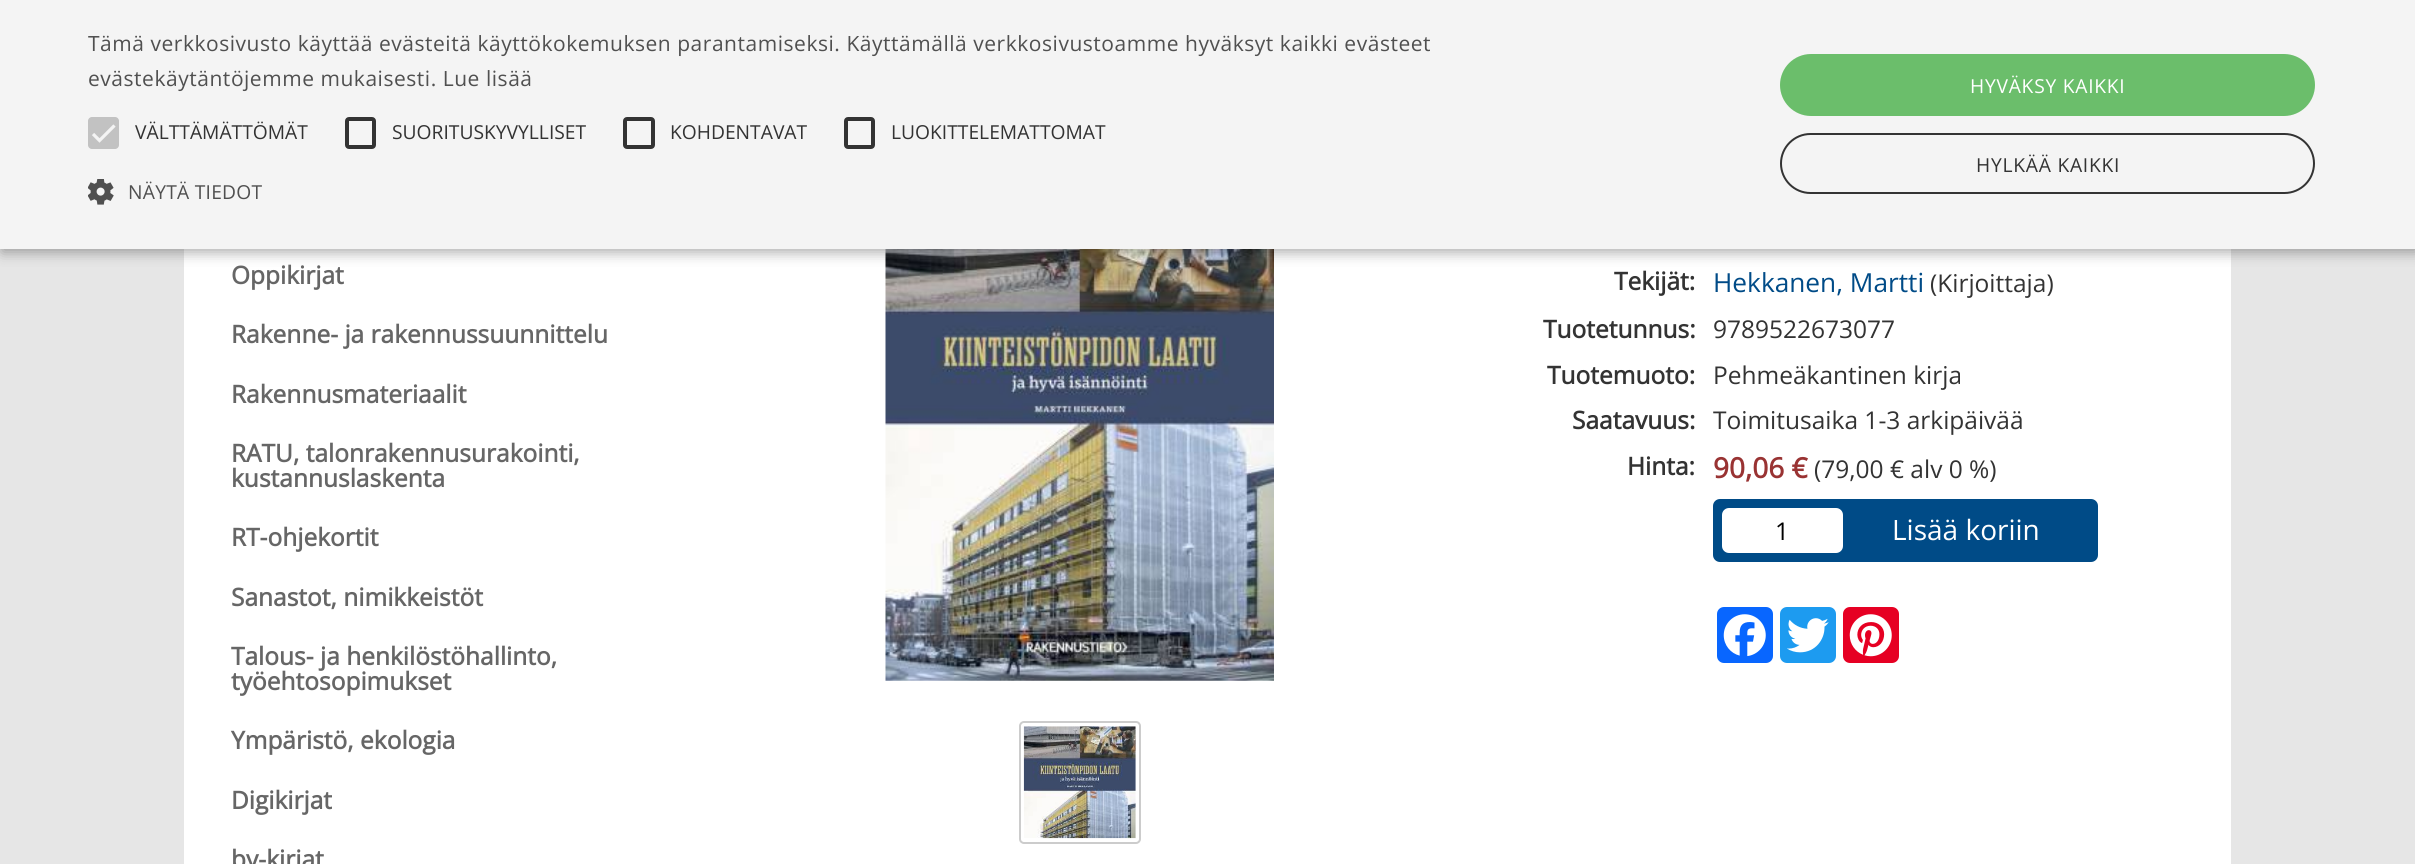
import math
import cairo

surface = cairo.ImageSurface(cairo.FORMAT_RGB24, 2415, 864)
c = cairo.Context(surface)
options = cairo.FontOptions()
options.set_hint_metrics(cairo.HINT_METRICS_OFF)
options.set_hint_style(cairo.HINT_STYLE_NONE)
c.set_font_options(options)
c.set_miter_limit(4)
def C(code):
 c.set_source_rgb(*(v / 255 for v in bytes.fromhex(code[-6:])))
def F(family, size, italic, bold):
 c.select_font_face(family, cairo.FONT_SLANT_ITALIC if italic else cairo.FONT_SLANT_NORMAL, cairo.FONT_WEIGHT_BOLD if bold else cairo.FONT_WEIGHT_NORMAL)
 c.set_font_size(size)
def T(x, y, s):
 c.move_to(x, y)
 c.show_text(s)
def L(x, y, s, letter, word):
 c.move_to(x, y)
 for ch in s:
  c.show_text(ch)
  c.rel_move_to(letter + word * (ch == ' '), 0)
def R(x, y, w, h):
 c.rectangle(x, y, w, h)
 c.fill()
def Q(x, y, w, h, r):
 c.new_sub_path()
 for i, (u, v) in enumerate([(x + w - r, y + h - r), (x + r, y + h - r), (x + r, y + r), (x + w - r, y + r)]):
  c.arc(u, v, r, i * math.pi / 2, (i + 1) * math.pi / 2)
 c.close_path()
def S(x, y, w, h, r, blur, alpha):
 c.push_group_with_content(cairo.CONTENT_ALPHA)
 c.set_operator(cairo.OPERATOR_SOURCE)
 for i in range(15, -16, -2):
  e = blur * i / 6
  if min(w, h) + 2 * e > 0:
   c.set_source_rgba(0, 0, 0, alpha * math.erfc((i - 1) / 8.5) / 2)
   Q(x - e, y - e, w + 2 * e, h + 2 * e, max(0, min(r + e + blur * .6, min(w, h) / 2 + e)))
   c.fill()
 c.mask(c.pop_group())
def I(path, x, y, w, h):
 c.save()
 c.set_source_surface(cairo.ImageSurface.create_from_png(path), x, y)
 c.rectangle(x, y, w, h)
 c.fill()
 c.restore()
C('e6e6e6')
c.paint()
C('ffffff')
R(184,249,2047,615)
I('2.png',885,249,389,432)
C('000000')
S(2,4,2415,248,0,7,.35)
C('f4f4f4')
R(0,0,2415,249)
F('Open Sans',21,0,0)
C('505050')
L(88,51,'Tämä verkkosivusto käyttää evästeitä käyttökokemuksen parantamiseksi. Käyttämällä verkkosivustoamme hyväksyt kaikki evästeet',.53,0)
L(88,86,'evästekäytäntöjemme mukaisesti. Lue lisää',.53,0)
C('c2c2c2')
Q(88,117,31,32,4)
c.fill()
c.new_path()
c.move_to(93,134)
c.line_to(99.5,140.5)
c.line_to(114.5,125.5)
C('f4f4f4')
c.set_line_width(3.2)
c.stroke()
F('Open Sans',19.25,0,0)
C('333333')
T(135,139,'VÄLTTÄMÄTTÖMÄT')
Q(347,119,27,28,2)
c.set_line_width(4)
c.stroke()
T(392,139,'SUORITUSKYVYLLISET')
Q(625,119,28,28,2)
c.stroke()
T(670,139,'KOHDENTAVAT')
Q(846,119,27,28,2)
c.stroke()
T(891,139,'LUOKITTELEMATTOMAT')
I('1.png',88,179,26,26)
C('505050')
L(128,199,'NÄYTÄ TIEDOT',.25,0)
C('6bbe6b')
Q(1780,54,535,62,31)
c.fill()
C('ffffff')
L(1970,93,'HYVÄKSY KAIKKI',.75,0)
Q(1781,134,533,59,29.5)
C('333333')
c.set_line_width(2)
c.stroke()
L(1976,172,'HYLKÄÄ KAIKKI',.75,0)
F('Open Sans',24.5,0,1)
C('666666')
T(231,284,'Oppikirjat')
T(231,343,'Rakenne- ja rakennussuunnittelu')
T(231,403,'Rakennusmateriaalit')
T(231,462,'RATU, talonrakennusurakointi,')
T(231,487,'kustannuslaskenta')
T(231,546,'RT-ohjekortit')
T(231,606,'Sanastot, nimikkeistöt')
T(231,665,'Talous- ja henkilöstöhallinto,')
T(231,690,'työehtosopimukset')
T(231,749,'Ympäristö, ekologia')
T(231,809,'Digikirjat')
T(231,868,'by-kirjat')
Q(1020,722,120,121,4)
C('cccccc')
c.stroke()
I('3.png',1023,726,113,113)
C('333333')
T(1614,290,'Tekijät:')
F('Open Sans',26.25,0,0)
C('004b87')
T(1713,292,'Hekkanen, Martti')
F('Open Sans',24.5,0,0)
C('333333')
T(1930,292,'(Kirjoittaja)')
F('Open Sans',24.5,0,1)
T(1543,338,'Tuotetunnus:')
F('Open Sans',24.5,0,0)
T(1713,338,'9789522673077')
F('Open Sans',24.5,0,1)
T(1547,384,'Tuotemuoto:')
F('Open Sans',24.5,0,0)
T(1713,384,'Pehmeäkantinen kirja')
F('Open Sans',24.5,0,1)
T(1572,429,'Saatavuus:')
F('Open Sans',24.5,0,0)
T(1713,429,'Toimitusaika 1-3 arkipäivää')
F('Open Sans',24.5,0,1)
T(1627,475,'Hinta:')
F('Open Sans',28,0,1)
C('993333')
T(1713,478,'90,06 €')
F('Open Sans',24.5,0,0)
C('333333')
T(1814,478,'(79,00 € alv 0 %)')
C('004b87')
Q(1713,499,385,63,7)
c.fill()
C('ffffff')
Q(1723,509,119,43,6)
c.fill_preserve()
c.stroke()
C('000000')
T(1775,540,'1')
F('Open Sans',28,0,0)
C('ffffff')
T(1892,540,'Lisää koriin')
C('0866ff')
Q(1717,607,56,56,7)
c.fill()
I('4.png',1723,614,43,43)
C('1d9bf0')
Q(1780,607,56,56,7)
c.fill()
I('5.png',1787,618,42,35)
C('e60023')
Q(1843,607,56,56,7)
c.fill()
I('6.png',1849,614,43,43)
surface.write_to_png('o.png')
